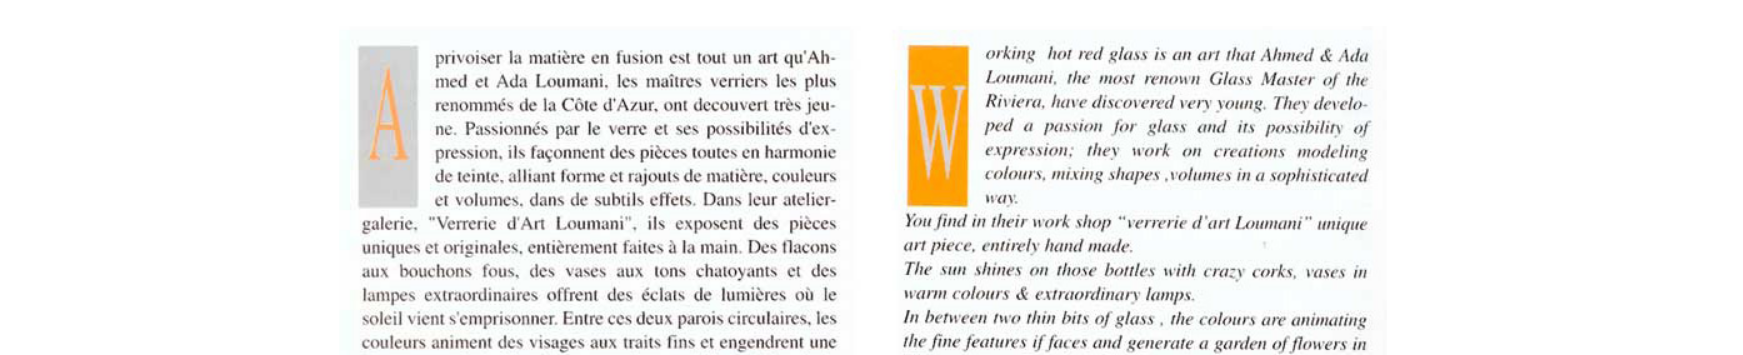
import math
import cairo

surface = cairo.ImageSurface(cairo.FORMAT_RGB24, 1743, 355)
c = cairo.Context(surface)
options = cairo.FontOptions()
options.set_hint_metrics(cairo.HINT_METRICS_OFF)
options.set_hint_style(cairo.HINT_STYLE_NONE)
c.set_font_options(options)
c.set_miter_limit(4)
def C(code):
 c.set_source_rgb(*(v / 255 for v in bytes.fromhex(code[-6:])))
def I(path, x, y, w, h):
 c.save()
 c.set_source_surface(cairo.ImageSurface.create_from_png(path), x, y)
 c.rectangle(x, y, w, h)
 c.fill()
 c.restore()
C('ffffff')
c.paint()
I('1.png',339,26,1048,329)
surface.write_to_png('o.png')
